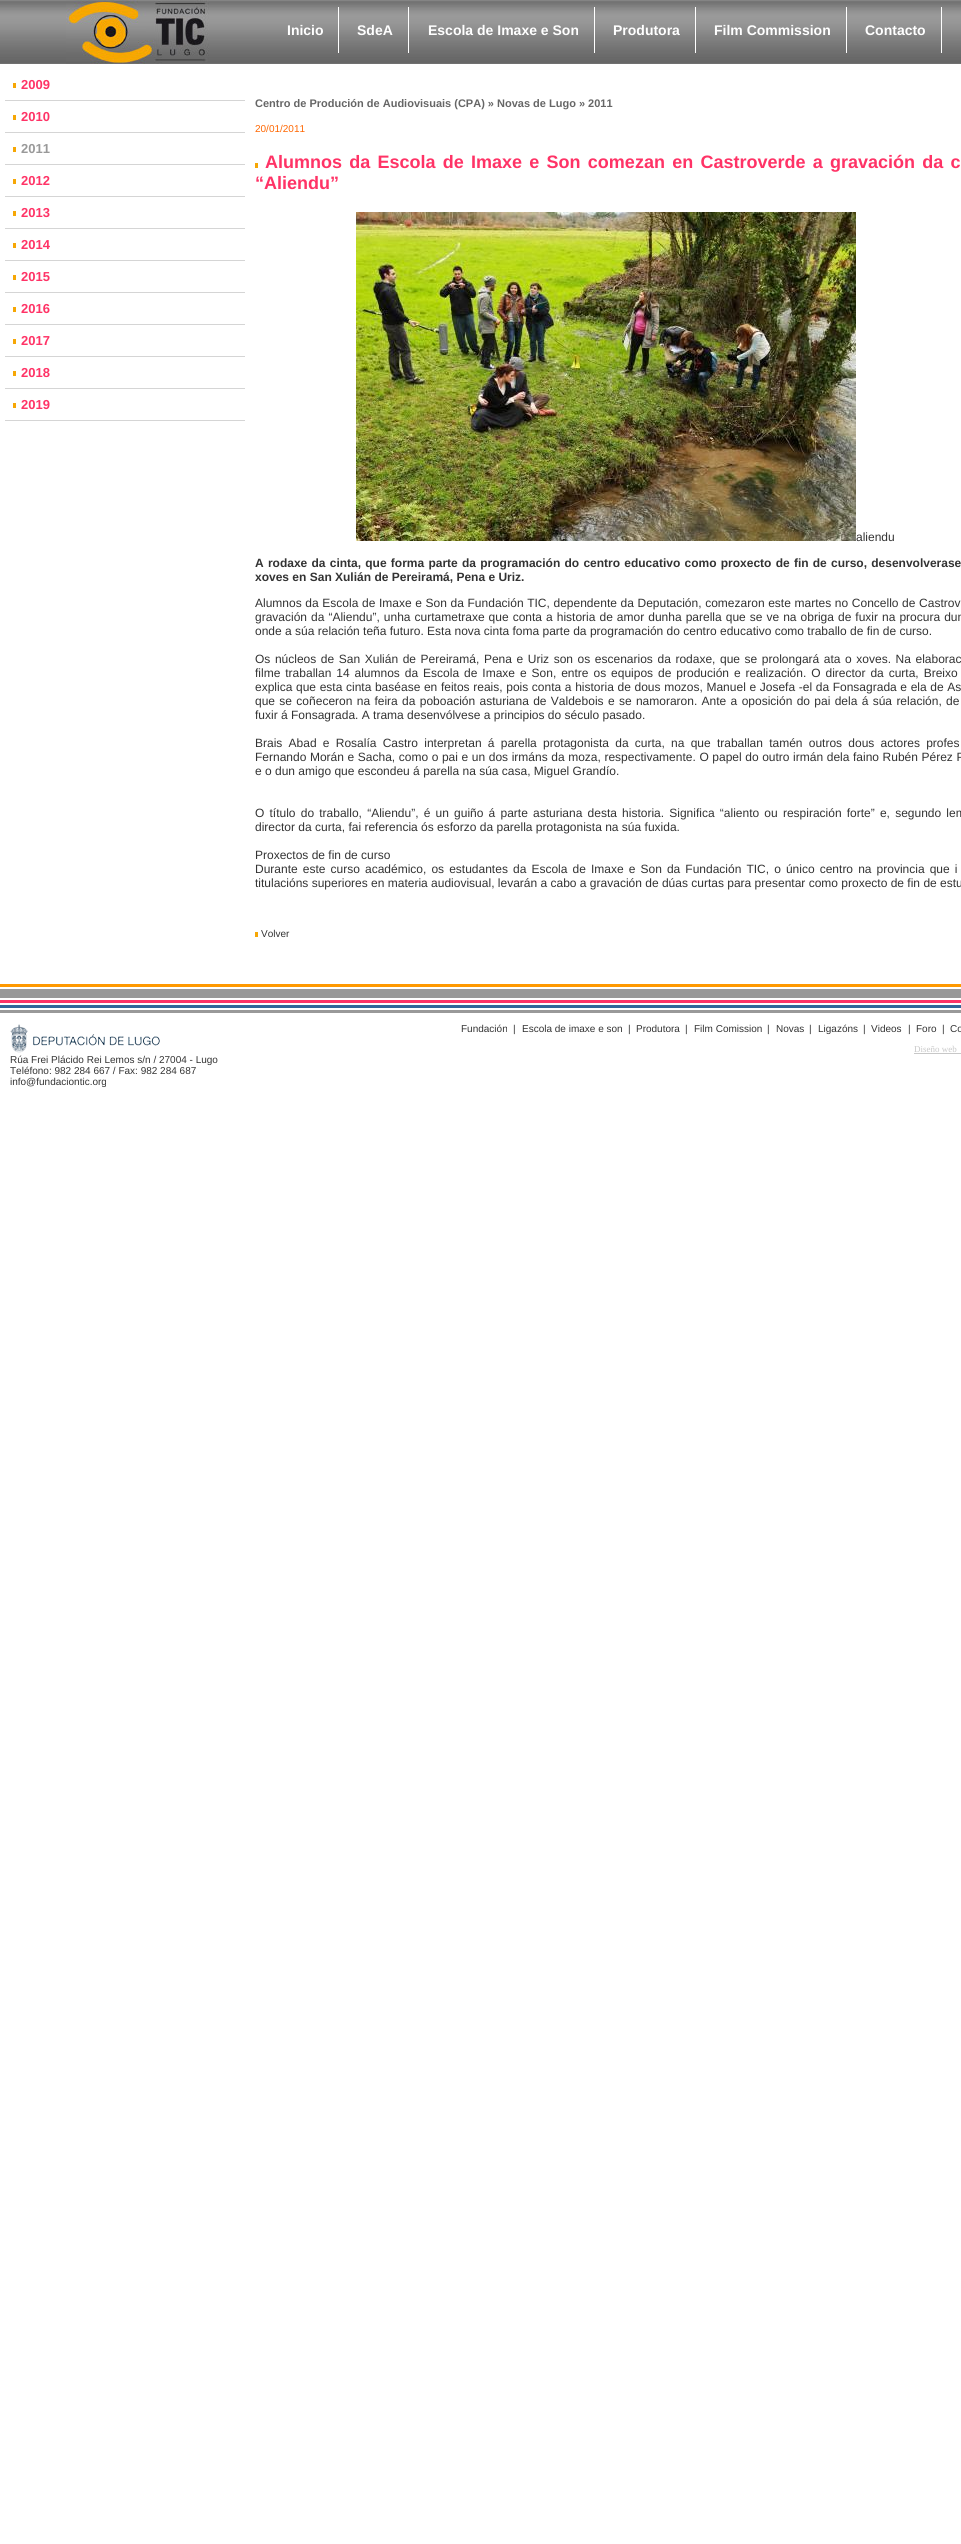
import math
import cairo

surface = cairo.ImageSurface(cairo.FORMAT_RGB24, 961, 2544)
c = cairo.Context(surface)
options = cairo.FontOptions()
options.set_hint_metrics(cairo.HINT_METRICS_OFF)
options.set_hint_style(cairo.HINT_STYLE_NONE)
c.set_font_options(options)
c.set_miter_limit(4)
def C(code):
 c.set_source_rgb(*(v / 255 for v in bytes.fromhex(code[-6:])))
def F(family, size, italic, bold):
 c.select_font_face(family, cairo.FONT_SLANT_ITALIC if italic else cairo.FONT_SLANT_NORMAL, cairo.FONT_WEIGHT_BOLD if bold else cairo.FONT_WEIGHT_NORMAL)
 c.set_font_size(size)
def T(x, y, s):
 c.move_to(x, y)
 c.show_text(s)
def L(x, y, s, letter, word):
 c.move_to(x, y)
 for ch in s:
  c.show_text(ch)
  c.rel_move_to(letter + word * (ch == ' '), 0)
def R(x, y, w, h):
 c.rectangle(x, y, w, h)
 c.fill()
def I(path, x, y, w, h):
 c.save()
 c.set_source_surface(cairo.ImageSurface.create_from_png(path), x, y)
 c.rectangle(x, y, w, h)
 c.fill()
 c.restore()
C('ffffff')
c.paint()
I('1.png',0,0,961,64)
I('2.png',66,0,143,64)
F('Liberation Sans',14,0,1)
C('ffffff')
T(287,35,'Inicio')
R(338,7,1,46)
T(357,35,'SdeA')
R(408,7,1,46)
T(428,35,'Escola de Imaxe e Son')
R(594,7,1,46)
T(613,35,'Produtora')
R(695,7,1,46)
T(714,35,'Film Commission')
R(846,7,1,46)
T(865,35,'Contacto')
R(941,7,1,46)
C('d5d5d5')
R(5,100,240,1)
C('f6a705')
R(13,83,3,5)
F('Liberation Sans',13,0,1)
C('ff3366')
T(21,89,'2009')
C('d5d5d5')
R(5,132,240,1)
C('f6a705')
R(13,115,3,5)
C('ff3366')
T(21,121,'2010')
C('d5d5d5')
R(5,164,240,1)
C('f6a705')
R(13,147,3,5)
C('999999')
T(21,153,'2011')
C('d5d5d5')
R(5,196,240,1)
C('f6a705')
R(13,179,3,5)
C('ff3366')
T(21,185,'2012')
C('d5d5d5')
R(5,228,240,1)
C('f6a705')
R(13,211,3,5)
C('ff3366')
T(21,217,'2013')
C('d5d5d5')
R(5,260,240,1)
C('f6a705')
R(13,243,3,5)
C('ff3366')
T(21,249,'2014')
C('d5d5d5')
R(5,292,240,1)
C('f6a705')
R(13,275,3,5)
C('ff3366')
T(21,281,'2015')
C('d5d5d5')
R(5,324,240,1)
C('f6a705')
R(13,307,3,5)
C('ff3366')
T(21,313,'2016')
C('d5d5d5')
R(5,356,240,1)
C('f6a705')
R(13,339,3,5)
C('ff3366')
T(21,345,'2017')
C('d5d5d5')
R(5,388,240,1)
C('f6a705')
R(13,371,3,5)
C('ff3366')
T(21,377,'2018')
C('d5d5d5')
R(5,420,240,1)
C('f6a705')
R(13,403,3,5)
C('ff3366')
T(21,409,'2019')
F('Liberation Sans',11,0,1)
C('666666')
T(255,107,'Centro de Produción de Audiovisuais (CPA) » Novas de Lugo » 2011')
F('Liberation Sans',10,0,0)
C('ff6600')
T(255,132,'20/01/2011')
C('f6a705')
R(255,163,3,5)
F('Liberation Sans',18,0,1)
C('ff3366')
L(265,168,'Alumnos da Escola de Imaxe e Son comezan en Castroverde a gravación da c',0,2.25)
T(255,189,'“Aliendu”')
I('3.png',356,212,500,329)
F('Liberation Sans',12,0,0)
C('333333')
T(856,541,'aliendu')
F('Liberation Sans',12,0,1)
L(255,567,'A rodaxe da cinta, que forma parte da programación do centro educativo como proxecto de fin de curso, desenvolverase',0,.9)
T(255,581,'xoves en San Xulián de Pereiramá, Pena e Uriz.')
F('Liberation Sans',12,0,0)
L(255,607,'Alumnos da Escola de Imaxe e Son da Fundación TIC, dependente da Deputación, comezaron este martes no Concello de Castrov',0,.3)
L(255,621,'gravación da “Aliendu”, unha curtametraxe que conta a historia de amor dunha parella que se ve na obriga de fuxir na procura dun',0,.7)
T(255,635,'onde a súa relación teña futuro. Esta nova cinta foma parte da programación do centro educativo como traballo de fin de curso.')
L(255,663,'Os núcleos de San Xulián de Pereiramá, Pena e Uriz son os escenarios da rodaxe, que se prolongará ata o xoves. Na elaborac',0,1.25)
L(255,677,'filme traballan 14 alumnos da Escola de Imaxe e Son, entre os equipos de produción e realización. O director da curta, Breixo',0,1.6)
L(255,691,'explica que esta cinta baséase en feitos reais, pois conta a historia de dous mozos, Manuel e Josefa -el da Fonsagrada e ela de As',0,.3)
L(255,705,'que se coñeceron na feira da poboación asturiana de Valdebois e se namoraron. Ante a oposición do pai dela á súa relación, de',0,1)
T(255,719,'fuxir á Fonsagrada. A trama desenvólvese a principios do século pasado.')
L(255,747,'Brais Abad e Rosalía Castro interpretan á parella protagonista da curta, na que traballan tamén outros dous actores profes',0,2.9)
L(255,761,'Fernando Morán e Sacha, como o pai e un dos irmáns da moza, respectivamente. O papel do outro irmán dela faino Rubén Pérez P',0,.25)
T(255,775,'e o dun amigo que escondeu á parella na súa casa, Miguel Grandío.')
L(255,817,'O título do traballo, “Aliendu”, é un guiño á parte asturiana desta historia. Significa “aliento ou respiración forte” e, segundo lem',0,1.85)
T(255,831,'director da curta, fai referencia ós esforzo da parella protagonista na súa fuxida.')
T(255,859,'Proxectos de fin de curso')
L(255,873,'Durante este curso académico, os estudantes da Escola de Imaxe e Son da Fundación TIC, o único centro na provincia que i',0,1.75)
T(255,887,'titulacións superiores en materia audiovisual, levarán a cabo a gravación de dúas curtas para presentar como proxecto de fin de estu')
F('Liberation Sans',10,0,0)
T(261,937,'Volver')
C('f6a705')
R(255,932,3,5)
I('4.png',0,984,961,29)
C('333333')
T(461,1032,'Fundación')
T(513,1032,'|')
T(522,1032,'Escola de imaxe e son')
T(628,1032,'|')
T(636,1032,'Produtora')
T(685,1032,'|')
T(694,1032,'Film Comission')
T(767,1032,'|')
T(776,1032,'Novas')
T(809,1032,'|')
T(818,1032,'Ligazóns')
T(863,1032,'|')
T(871,1032,'Videos')
T(908,1032,'|')
T(916,1032,'Foro')
T(942,1032,'|')
T(950,1032,'Co')
F('Liberation Serif',9,0,0)
C('c8c8c8')
T(914,1052,'Diseño web')
R(914,1053,47,1)
I('5.png',10,1024,150,29)
F('Liberation Sans',10,0,0)
C('333333')
T(10,1063,'Rúa Frei Plácido Rei Lemos s/n / 27004 - Lugo')
T(10,1074,'Teléfono: 982 284 667 / Fax: 982 284 687')
T(10,1085,'info@fundaciontic.org')
surface.write_to_png('o.png')
